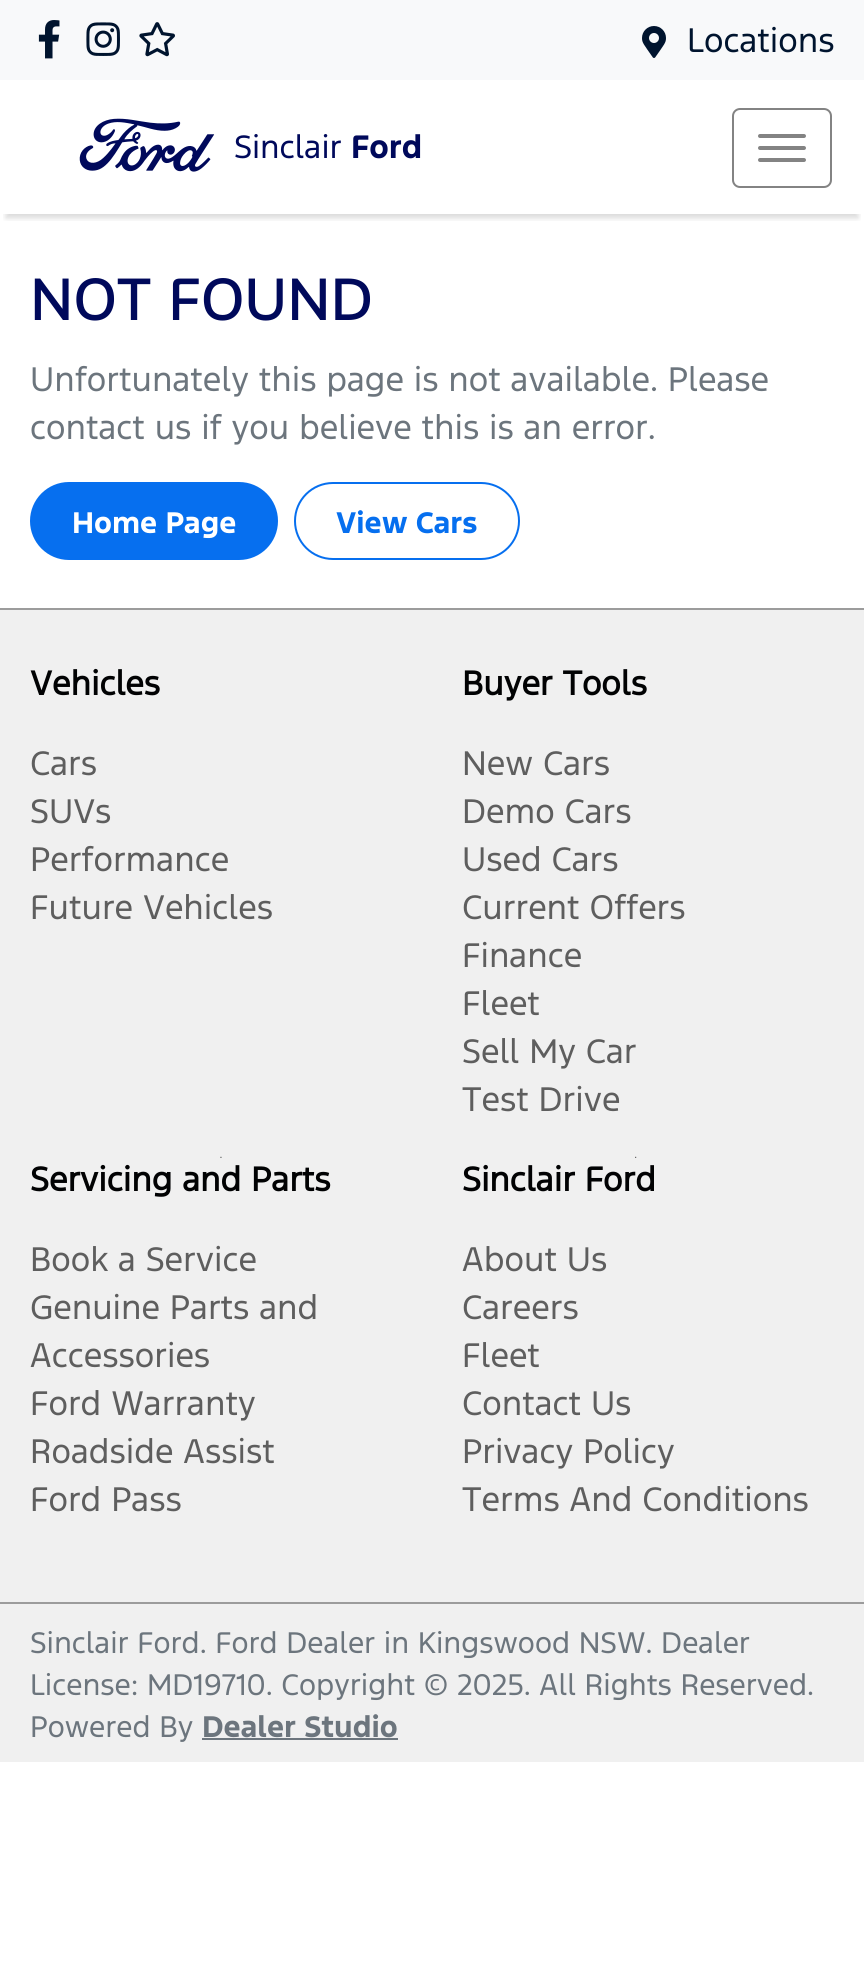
import math
import cairo

surface = cairo.ImageSurface(cairo.FORMAT_RGB24, 864, 1974)
c = cairo.Context(surface)
options = cairo.FontOptions()
options.set_hint_metrics(cairo.HINT_METRICS_OFF)
options.set_hint_style(cairo.HINT_STYLE_NONE)
c.set_font_options(options)
c.set_miter_limit(4)
def C(code):
 c.set_source_rgb(*(v / 255 for v in bytes.fromhex(code[-6:])))
def F(family, size, italic, bold):
 c.select_font_face(family, cairo.FONT_SLANT_ITALIC if italic else cairo.FONT_SLANT_NORMAL, cairo.FONT_WEIGHT_BOLD if bold else cairo.FONT_WEIGHT_NORMAL)
 c.set_font_size(size)
def T(x, y, s):
 c.move_to(x, y)
 c.show_text(s)
def R(x, y, w, h):
 c.rectangle(x, y, w, h)
 c.fill()
def Q(x, y, w, h, r):
 c.new_sub_path()
 for i, (u, v) in enumerate([(x + w - r, y + h - r), (x + r, y + h - r), (x + r, y + r), (x + w - r, y + r)]):
  c.arc(u, v, r, i * math.pi / 2, (i + 1) * math.pi / 2)
 c.close_path()
def S(x, y, w, h, r, blur, alpha):
 c.push_group_with_content(cairo.CONTENT_ALPHA)
 c.set_operator(cairo.OPERATOR_SOURCE)
 for i in range(15, -16, -2):
  e = blur * i / 6
  if min(w, h) + 2 * e > 0:
   c.set_source_rgba(0, 0, 0, alpha * math.erfc((i - 1) / 8.5) / 2)
   Q(x - e, y - e, w + 2 * e, h + 2 * e, max(0, min(r + e + blur * .6, min(w, h) / 2 + e)))
   c.fill()
 c.mask(c.pop_group())
def I(path, x, y, w, h):
 c.save()
 c.set_source_surface(cairo.ImageSurface.create_from_png(path), x, y)
 c.rectangle(x, y, w, h)
 c.fill()
 c.restore()
C('ffffff')
c.paint()
C('f8f9fa')
R(0,0,864,80)
I('1.png',38,20,22,39)
I('2.png',86,22,34,34)
I('3.png',139,22,36,35)
I('4.png',642,26,24,32)
F('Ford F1',32,0,0)
C('00142e')
T(687,52,'Locations')
c.save()
c.rectangle(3,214,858,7)
c.clip()
C('000000')
S(6,96,852,122,0,3,.15)
c.restore()
I('5.png',79,118,136,54)
F('Ford F1',30.5,0,0)
C('00095b')
T(234,158,'Sinclair')
F('Ford F1',30.5,0,1)
T(351,158,'Ford')
Q(733,109,98,78,7)
C('838383')
c.stroke()
Q(758,134,48,4,2)
c.fill()
Q(758,146,48,4,2)
c.fill()
Q(758,158,48,4,2)
c.fill()
F('Ford F1 Medium',56,0,0)
C('00095b')
T(30,320,'NOT FOUND')
F('Ford F1',32,0,0)
C('6c757d')
T(30,391,'Unfortunately this page is not available. Please')
T(30,439,'contact us if you believe this is an error.')
C('066fef')
Q(31,483,246,76,38)
c.fill_preserve()
c.stroke()
F('Ford F1',28,0,1)
C('ffffff')
T(72,533,'Home Page')
Q(295,483,224,76,38)
C('066fef')
c.stroke()
T(336,533,'View Cars')
C('f0f0f0')
R(0,610,864,992)
C('9c9c9c')
R(0,608,864,2)
R(0,1602,864,2)
F('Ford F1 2',32,0,1)
C('010203')
T(30,695,'Vehicles')
F('Ford F1',32,0,0)
C('5e5e5e')
T(30,775,'Cars')
T(30,823,'SUVs')
T(30,871,'Performance')
T(30,919,'Future Vehicles')
F('Ford F1 2',32,0,1)
C('010203')
T(462,695,'Buyer Tools')
F('Ford F1',32,0,0)
C('5e5e5e')
T(462,775,'New Cars')
T(462,823,'Demo Cars')
T(462,871,'Used Cars')
T(462,919,'Current Offers')
T(462,967,'Finance')
T(462,1015,'Fleet')
T(462,1063,'Sell My Car')
T(462,1111,'Test Drive')
F('Ford F1 2',32,0,1)
C('010203')
T(30,1191,'Servicing and Parts')
F('Ford F1',32,0,0)
C('5e5e5e')
T(30,1271,'Book a Service')
T(30,1319,'Genuine Parts and')
T(30,1367,'Accessories')
T(30,1415,'Ford Warranty')
T(30,1463,'Roadside Assist')
T(30,1511,'Ford Pass')
F('Ford F1 2',32,0,1)
C('010203')
T(462,1191,'Sinclair Ford')
F('Ford F1',32,0,0)
C('5e5e5e')
T(462,1271,'About Us')
T(462,1319,'Careers')
T(462,1367,'Fleet')
T(462,1415,'Contact Us')
T(462,1463,'Privacy Policy')
T(462,1511,'Terms And Conditions')
C('f0f0f0')
R(0,1604,864,158)
F('Ford F1',28,0,0)
C('6c757d')
T(30,1653,'Sinclair Ford. Ford Dealer in Kingswood NSW. Dealer')
T(30,1695,'License: MD19710. Copyright © 2025. All Rights Reserved.')
T(30,1737,'Powered By')
F('Ford F1',28,0,1)
T(202,1737,'Dealer Studio')
R(202,1738,196,2)
surface.write_to_png('o.png')
